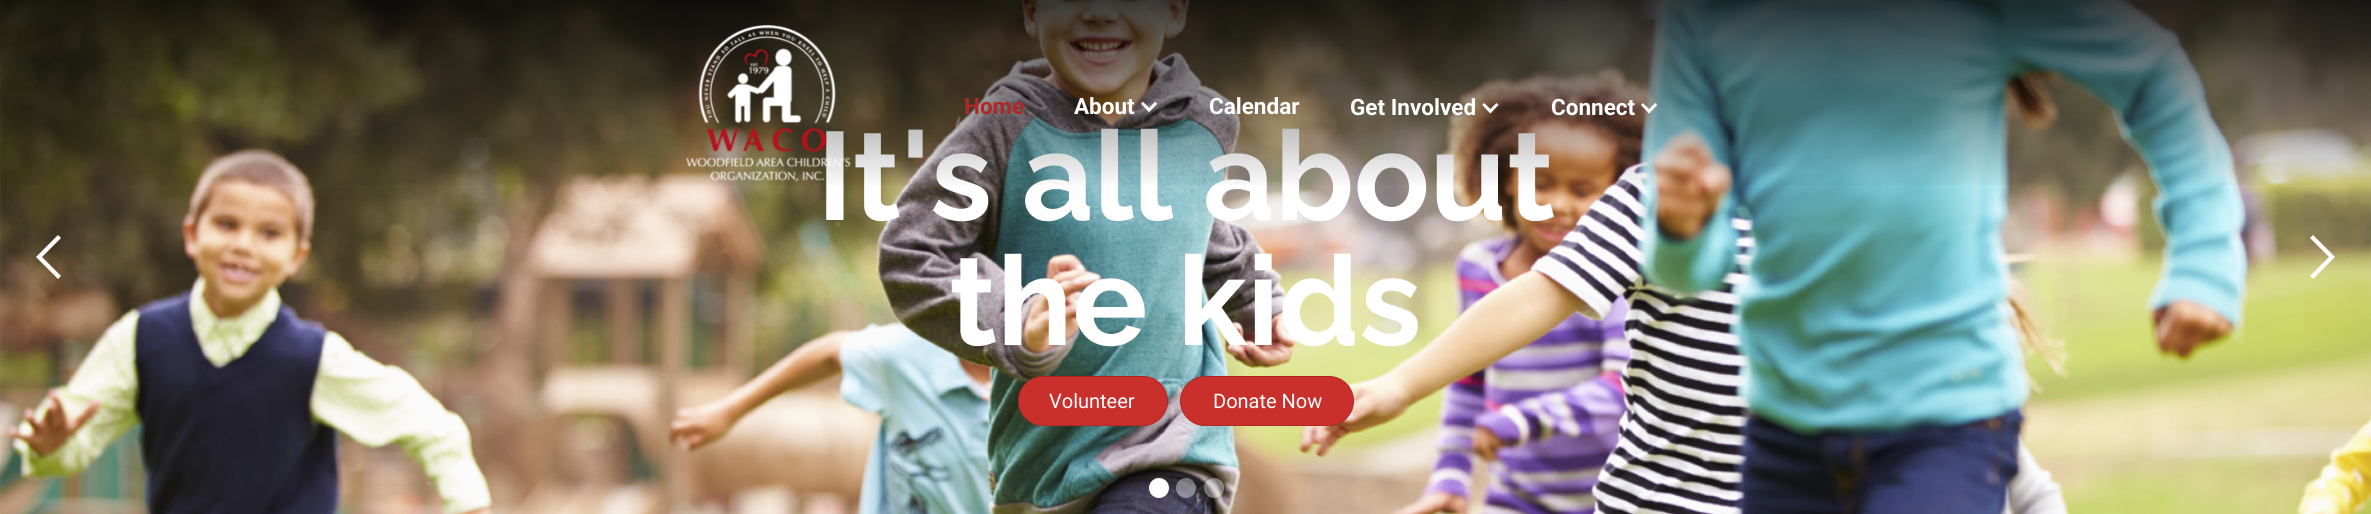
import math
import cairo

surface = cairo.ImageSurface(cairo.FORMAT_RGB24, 2371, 514)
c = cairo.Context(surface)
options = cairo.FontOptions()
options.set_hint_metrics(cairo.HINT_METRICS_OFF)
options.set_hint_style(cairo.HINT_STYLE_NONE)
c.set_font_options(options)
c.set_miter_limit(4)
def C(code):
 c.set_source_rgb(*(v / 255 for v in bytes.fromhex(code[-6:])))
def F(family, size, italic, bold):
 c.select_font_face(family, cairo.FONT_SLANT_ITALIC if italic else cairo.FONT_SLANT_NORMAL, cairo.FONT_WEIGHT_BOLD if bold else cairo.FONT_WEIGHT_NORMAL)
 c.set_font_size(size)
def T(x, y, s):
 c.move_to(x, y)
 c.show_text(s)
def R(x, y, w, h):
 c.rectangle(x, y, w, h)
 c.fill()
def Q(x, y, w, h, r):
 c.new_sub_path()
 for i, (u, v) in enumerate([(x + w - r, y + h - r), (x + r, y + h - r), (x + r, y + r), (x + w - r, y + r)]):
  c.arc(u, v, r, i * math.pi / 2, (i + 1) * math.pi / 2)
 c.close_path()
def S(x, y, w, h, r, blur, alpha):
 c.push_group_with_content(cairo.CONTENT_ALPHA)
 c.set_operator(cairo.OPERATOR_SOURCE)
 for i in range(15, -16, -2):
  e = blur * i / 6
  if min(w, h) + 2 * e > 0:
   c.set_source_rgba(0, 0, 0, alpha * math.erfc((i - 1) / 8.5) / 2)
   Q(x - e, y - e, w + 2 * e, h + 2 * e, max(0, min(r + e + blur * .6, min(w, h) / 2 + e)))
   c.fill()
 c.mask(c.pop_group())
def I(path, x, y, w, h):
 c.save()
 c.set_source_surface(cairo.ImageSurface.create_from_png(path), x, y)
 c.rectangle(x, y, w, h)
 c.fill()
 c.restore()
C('ffffff')
c.paint()
I('5.png',0,0,2371,514)
F('Raleway',125,0,1)
C('ffffff')
T(817,220,'It\'s all about')
gradient = cairo.LinearGradient(1186,0,1186,190)
gradient.add_color_stop_rgba(0,0,0,0,.77)
gradient.add_color_stop_rgba(1,0,0,0,0)
c.set_source(gradient)
R(0,0,2371,185)
I('1.png',686,25,165,157)
F('Roboto',22.5,0,1)
C('ac2925')
T(964,114,'Home')
C('ffffff')
T(1074,114,'About')
I('2.png',1141,101,17,12)
T(1209,114,'Calendar')
T(1350,115,'Get Involved')
I('3.png',1482,103,17,11)
T(1551,115,'Connect')
I('4.png',1641,103,16,11)
c.new_path()
c.move_to(36,257)
c.line_to(58,235)
c.line_to(61,238)
c.line_to(42,257)
c.line_to(61,276)
c.line_to(58,279)
c.close_path()
c.fill()
F('Raleway',125,0,1)
T(949,345,'the kids')
C('c9302c')
Q(1018.5,376.5,149,49,24.5)
c.fill_preserve()
C('ac2925')
c.set_line_width(1)
c.stroke()
F('Roboto',20,0,0)
C('ffffff')
T(1049,408,'Volunteer')
C('c9302c')
Q(1180.5,376.5,173,49,24.5)
c.fill_preserve()
C('ac2925')
c.stroke()
C('ffffff')
T(1213,408,'Donate Now')
c.new_path()
c.move_to(2335,257)
c.line_to(2313,235)
c.line_to(2310,238)
c.line_to(2329,257)
c.line_to(2310,276)
c.line_to(2313,279)
c.close_path()
c.fill()
C('333333')
S(1149,478,20,20,10,2,.4)
C('ffffff')
c.arc(1159,488,10,0,2 * math.pi)
c.fill()
c.set_source_rgba(1,1,1,0.4)
c.arc(1186,488,10,0,2 * math.pi)
c.fill()
c.save()
c.set_fill_rule(cairo.FILL_RULE_EVEN_ODD)
c.new_path()
c.move_to(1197,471)
c.line_to(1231,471)
c.line_to(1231,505)
c.line_to(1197,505)
c.close_path()
c.move_to(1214,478)
c.curve_to(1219.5,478,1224,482.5,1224,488)
c.curve_to(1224,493.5,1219.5,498,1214,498)
c.curve_to(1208.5,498,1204,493.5,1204,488)
c.curve_to(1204,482.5,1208.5,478,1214,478)
c.close_path()
c.clip()
C('333333')
S(1204,478,20,20,10,2,.4)
c.restore()
c.arc(1214,488,10,0,2 * math.pi)
c.fill()
surface.write_to_png('o.png')
